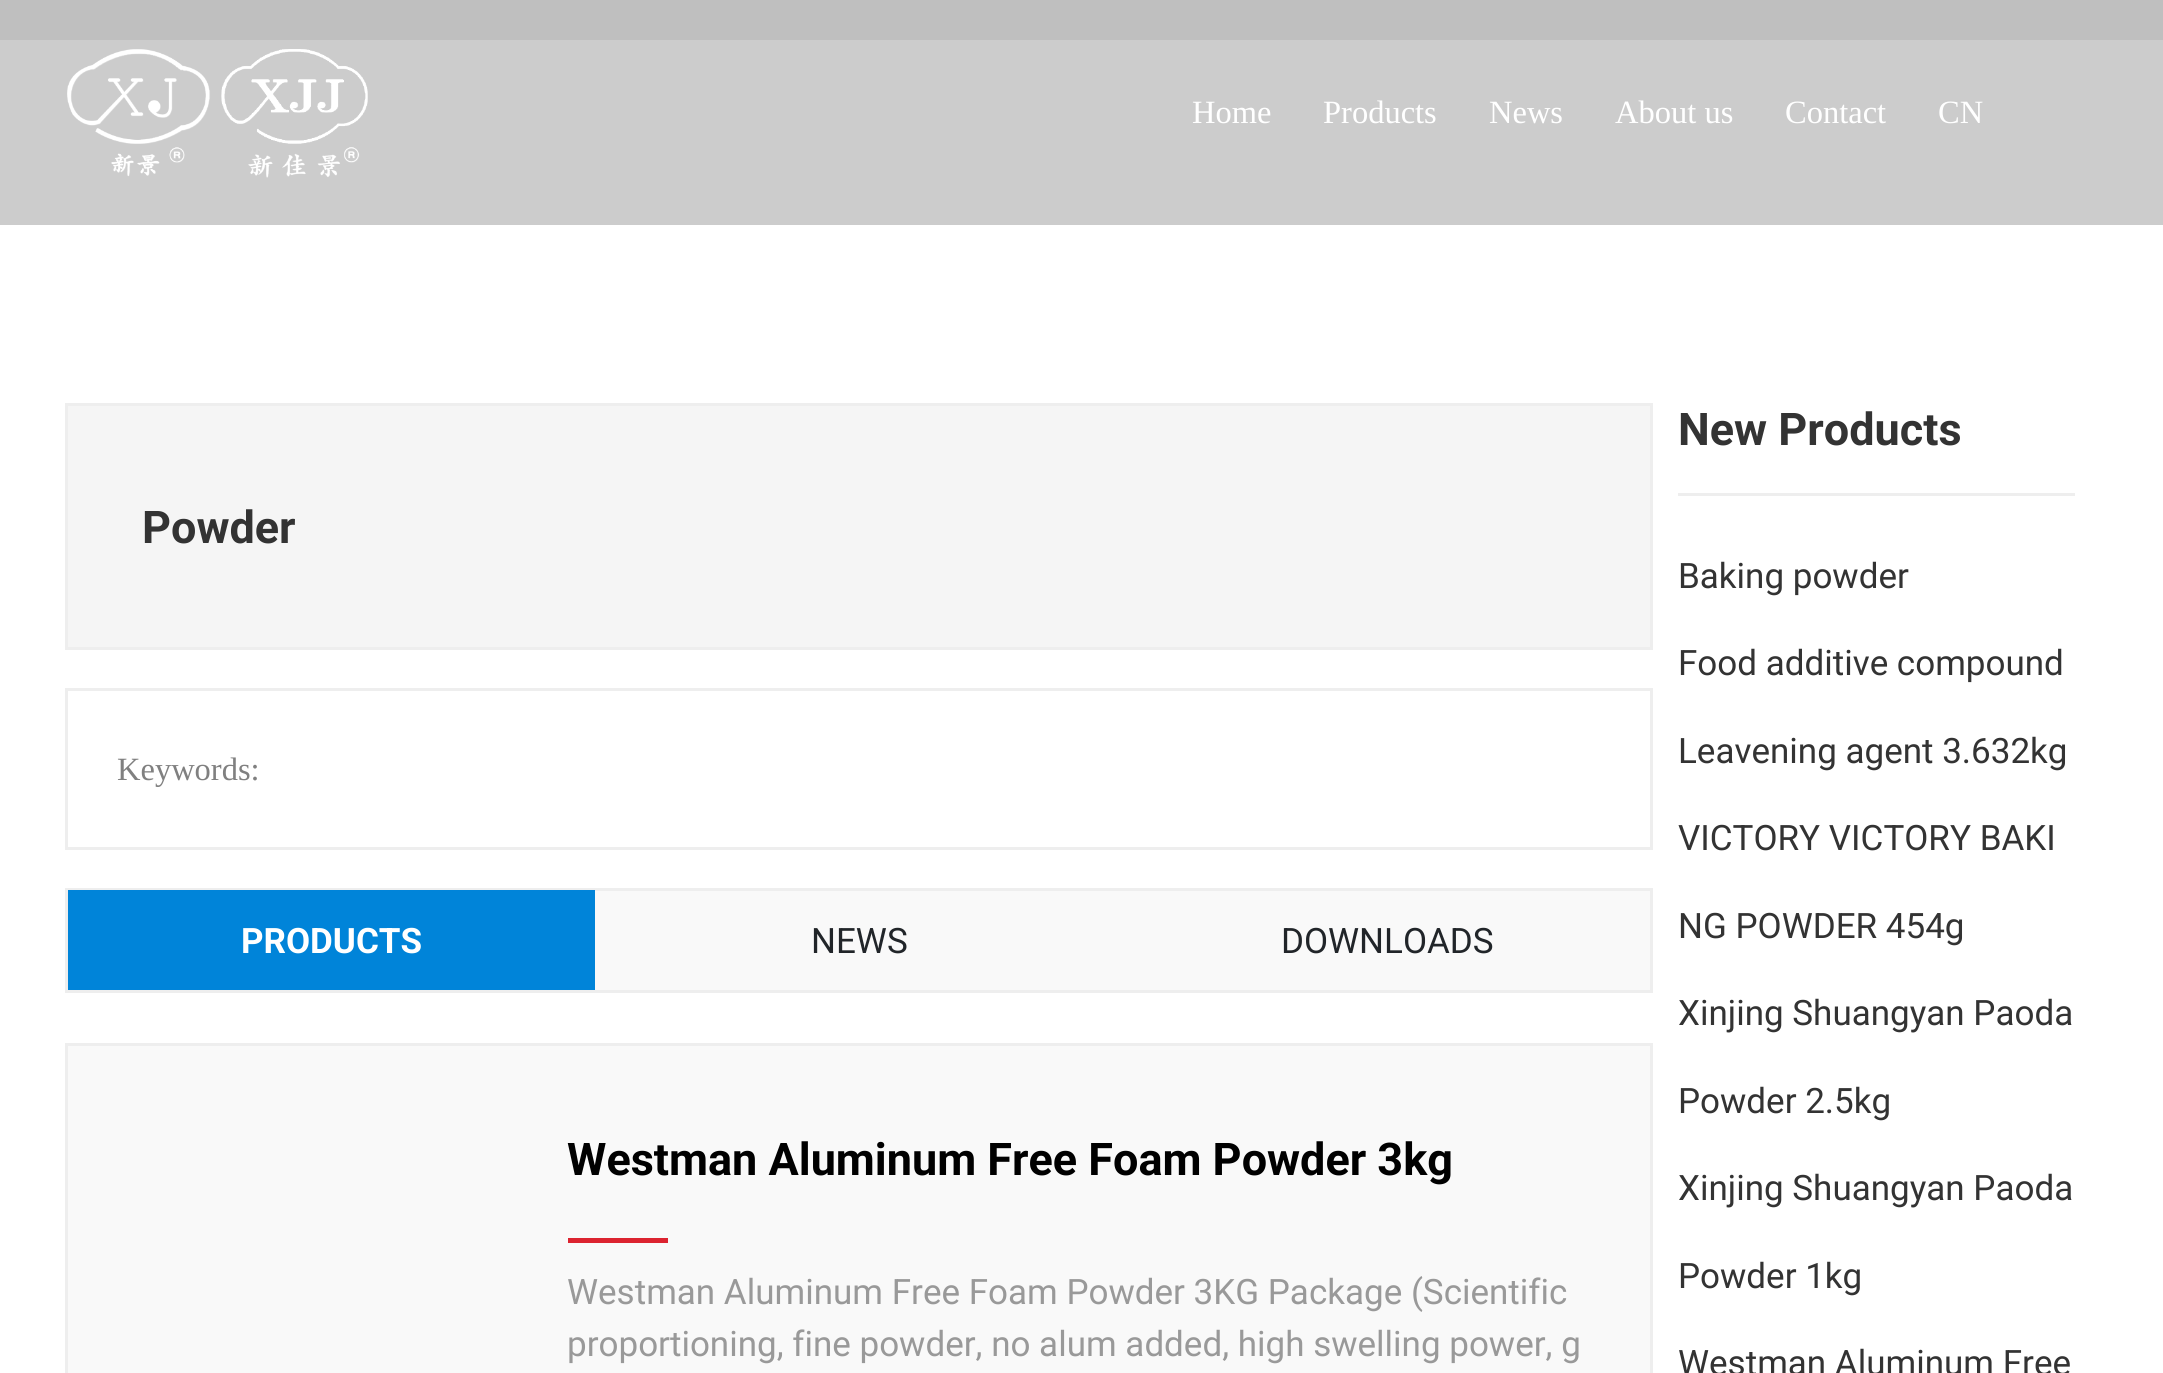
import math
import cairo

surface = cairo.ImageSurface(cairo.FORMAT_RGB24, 2163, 1373)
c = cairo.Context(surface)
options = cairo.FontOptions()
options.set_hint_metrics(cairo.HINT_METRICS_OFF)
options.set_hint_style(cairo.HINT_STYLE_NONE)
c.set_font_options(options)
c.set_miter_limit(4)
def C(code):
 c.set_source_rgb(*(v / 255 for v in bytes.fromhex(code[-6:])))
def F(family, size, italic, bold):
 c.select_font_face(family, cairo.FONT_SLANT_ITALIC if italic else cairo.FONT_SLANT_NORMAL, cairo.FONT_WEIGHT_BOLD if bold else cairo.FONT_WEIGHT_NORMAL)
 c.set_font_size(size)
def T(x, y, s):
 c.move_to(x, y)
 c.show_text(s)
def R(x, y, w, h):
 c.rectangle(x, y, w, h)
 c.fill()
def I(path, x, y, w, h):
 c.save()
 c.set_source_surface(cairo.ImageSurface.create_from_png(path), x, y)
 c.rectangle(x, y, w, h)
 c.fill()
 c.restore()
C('ffffff')
c.paint()
C('cccccc')
R(0,40,2163,185)
C('bfbfbf')
R(0,0,2163,40)
I('1.png',67,49,301,129)
F('Liberation Serif',32.5,0,0)
C('ffffff')
T(1192,123,'Home')
T(1323,123,'Products')
T(1489,123,'News')
T(1615,123,'About us')
T(1785,123,'Contact')
T(1938,123,'CN')
C('f5f5f5')
c.rectangle(66.5,404.5,1585,244)
c.fill_preserve()
C('eeeeee')
c.set_line_width(3)
c.stroke()
F('Roboto',45,0,1)
C('333333')
T(142,543,'Powder')
c.rectangle(66.5,689.5,1585,159)
C('eeeeee')
c.stroke()
F('Liberation Serif',32.5,0,0)
C('808080')
T(117,780,'Keywords:')
C('f9f9f9')
R(595,891,1055,99)
c.rectangle(66.5,889.5,1585,102)
C('eeeeee')
c.stroke()
C('0084d9')
R(68,890,527,100)
F('Roboto',35,0,1)
C('ffffff')
T(241,953,'PRODUCTS')
F('Roboto',35,0,0)
C('212529')
T(811,953,'NEWS')
T(1281,953,'DOWNLOADS')
C('f9f9f9')
c.rectangle(66.5,1044.5,1585,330)
c.fill_preserve()
C('eeeeee')
c.stroke()
F('Roboto',45,0,1)
C('000000')
T(567,1175,'Westman Aluminum Free Foam Powder 3kg')
C('dc2330')
R(568,1238,100,5)
F('Roboto',35,0,0)
C('999999')
T(567,1304,'Westman Aluminum Free Foam Powder 3KG Package (Scientific')
T(567,1356,'proportioning, fine powder, no alum added, high swelling power, g')
C('eeeeee')
R(1678,493,397,3)
F('Roboto',45,0,1)
C('333333')
T(1678,445,'New Products')
F('Roboto',35,0,0)
T(1678,588,'Baking powder')
T(1678,675,'Food additive compound')
T(1678,763,'Leavening agent 3.632kg')
T(1678,850,'VICTORY VICTORY BAKI')
T(1678,938,'NG POWDER 454g')
T(1678,1025,'Xinjing Shuangyan Paoda')
T(1678,1113,'Powder 2.5kg')
T(1678,1200,'Xinjing Shuangyan Paoda')
T(1678,1288,'Powder 1kg')
T(1678,1375,'Westman Aluminum Free')
surface.write_to_png('o.png')
